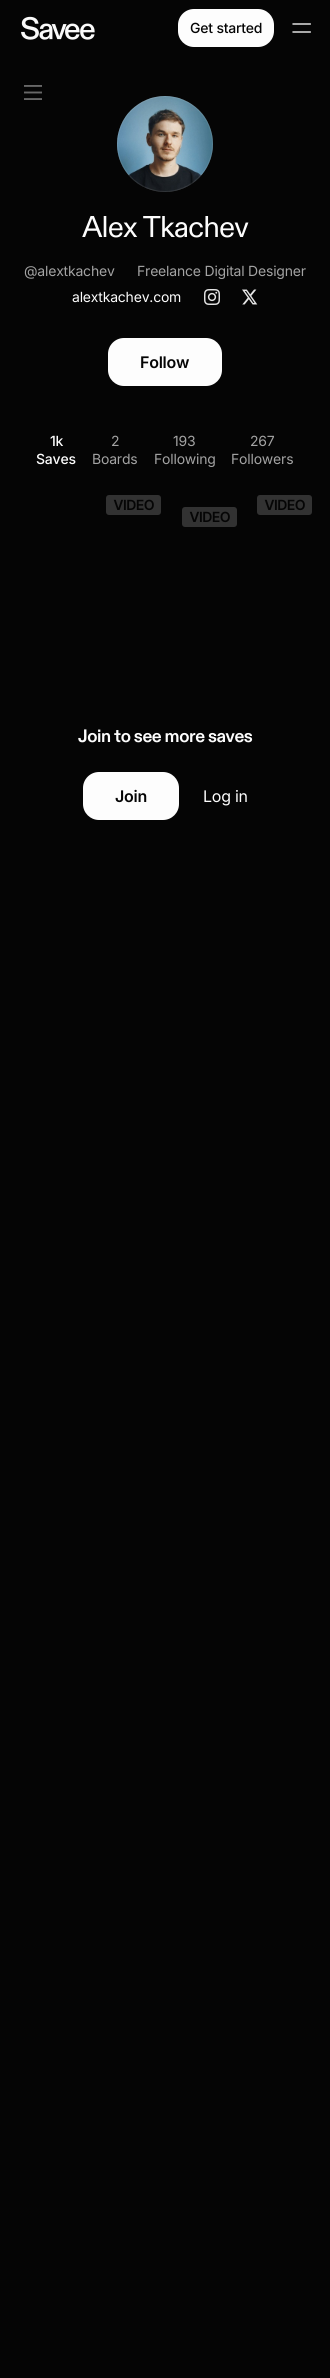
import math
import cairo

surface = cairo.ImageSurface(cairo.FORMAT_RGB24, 330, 2378)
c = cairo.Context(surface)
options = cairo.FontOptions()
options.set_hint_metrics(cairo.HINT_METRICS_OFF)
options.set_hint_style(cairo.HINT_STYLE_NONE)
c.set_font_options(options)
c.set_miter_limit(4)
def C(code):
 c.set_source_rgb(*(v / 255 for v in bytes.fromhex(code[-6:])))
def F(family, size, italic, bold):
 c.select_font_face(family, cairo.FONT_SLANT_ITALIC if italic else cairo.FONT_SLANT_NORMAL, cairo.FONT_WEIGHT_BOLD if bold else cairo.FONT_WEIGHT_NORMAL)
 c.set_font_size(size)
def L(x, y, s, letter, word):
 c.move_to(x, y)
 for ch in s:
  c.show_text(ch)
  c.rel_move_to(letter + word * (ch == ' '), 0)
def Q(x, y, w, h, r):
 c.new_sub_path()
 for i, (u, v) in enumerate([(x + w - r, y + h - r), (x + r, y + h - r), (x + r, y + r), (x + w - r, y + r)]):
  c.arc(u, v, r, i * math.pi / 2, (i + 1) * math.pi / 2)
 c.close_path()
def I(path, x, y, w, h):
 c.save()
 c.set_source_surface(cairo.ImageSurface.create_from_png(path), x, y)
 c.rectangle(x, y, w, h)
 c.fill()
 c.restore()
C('050505')
c.paint()
I('1.png',21,16,74,24)
C('fdfdfd')
Q(178,9,96,38,16)
c.fill()
F('Inter Medium',14,0,0)
C('050505')
L(190,33,'Get started',-.2,0)
I('2.png',292,23,19,10)
I('3.png',24,85,18,15)
C('2f2f2f')
c.arc(165,144,48,0,2 * math.pi)
c.fill()
I('4.png',117,96,96,96)
c.arc(165,144,47.5,0,2 * math.pi)
c.set_source_rgba(0.992,0.992,0.992,0.1)
c.set_line_width(1)
c.stroke()
F('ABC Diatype',30,0,0)
C('fdfdfd')
L(82,237,'Alex Tkachev',-.9,0)
F('Inter',14,0,0)
C('a3a3a3')
L(24,276,'@alextkachev',-.2,0)
L(137,276,'Freelance Digital Designer',-.2,0)
C('fdfdfd')
L(72,302,'alextkachev.com',-.2,0)
I('5.png',204,289,16,16)
I('6.png',242,289,16,16)
Q(108,338,114,48,16)
c.fill()
F('Inter SemiBold',16,0,0)
C('050505')
L(140,368,'Follow',-.25,0)
F('Inter Medium',14,0,0)
C('fdfdfd')
L(50,446,'1k',-.2,0)
L(36,464,'Saves',-.2,0)
F('Inter',14,0,0)
C('a3a3a3')
L(111,446,'2',-.2,0)
L(92,464,'Boards',-.2,0)
L(173,446,'193',-.2,0)
L(154,464,'Following',-.2,0)
L(250,446,'267',-.2,0)
L(231,464,'Followers',-.2,0)
I('7.png',106,495,55,20)
I('7.png',257,495,55,20)
I('7.png',182,507,55,20)
F('ABC Diatype',18,0,1)
C('fdfdfd')
L(78,742,'Join to see more saves',-.45,0)
Q(83,772,96,48,16)
c.fill()
F('Inter SemiBold',16,0,0)
C('050505')
L(115,802,'Join',-.25,0)
F('Inter',16,0,0)
C('fdfdfd')
L(203,802,'Log in',-.25,0)
surface.write_to_png('o.png')
